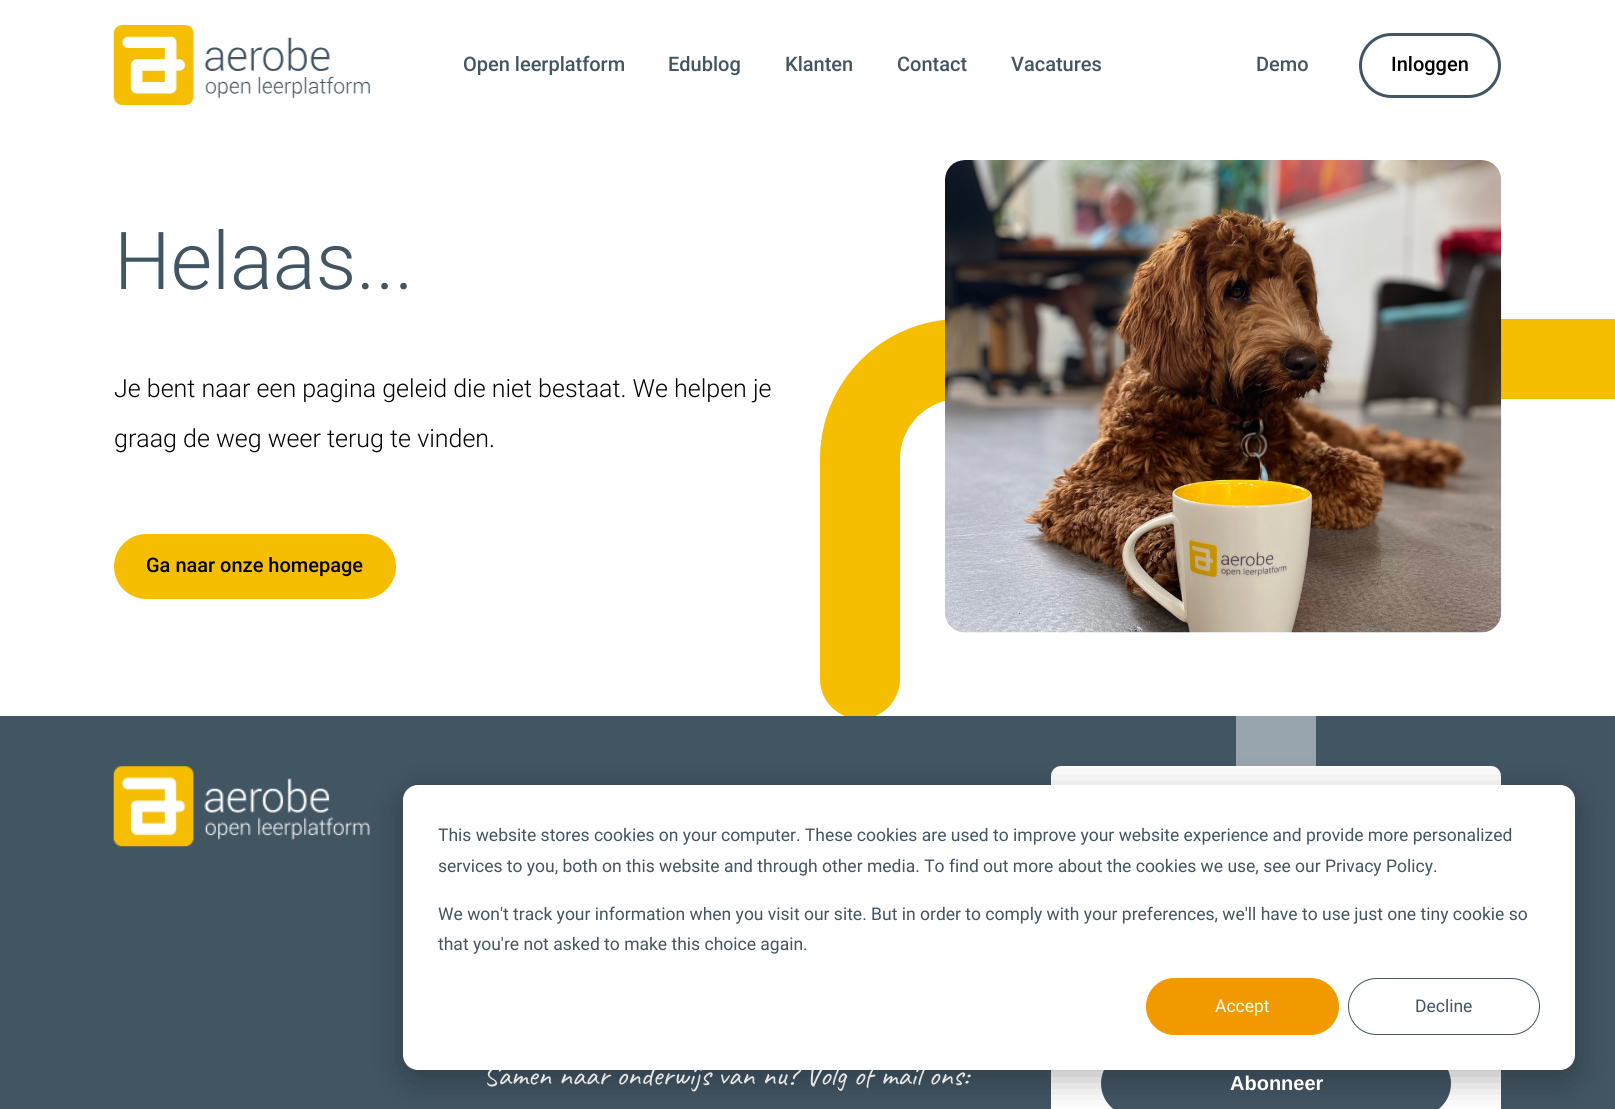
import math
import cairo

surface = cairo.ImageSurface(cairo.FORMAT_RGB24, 1615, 1109)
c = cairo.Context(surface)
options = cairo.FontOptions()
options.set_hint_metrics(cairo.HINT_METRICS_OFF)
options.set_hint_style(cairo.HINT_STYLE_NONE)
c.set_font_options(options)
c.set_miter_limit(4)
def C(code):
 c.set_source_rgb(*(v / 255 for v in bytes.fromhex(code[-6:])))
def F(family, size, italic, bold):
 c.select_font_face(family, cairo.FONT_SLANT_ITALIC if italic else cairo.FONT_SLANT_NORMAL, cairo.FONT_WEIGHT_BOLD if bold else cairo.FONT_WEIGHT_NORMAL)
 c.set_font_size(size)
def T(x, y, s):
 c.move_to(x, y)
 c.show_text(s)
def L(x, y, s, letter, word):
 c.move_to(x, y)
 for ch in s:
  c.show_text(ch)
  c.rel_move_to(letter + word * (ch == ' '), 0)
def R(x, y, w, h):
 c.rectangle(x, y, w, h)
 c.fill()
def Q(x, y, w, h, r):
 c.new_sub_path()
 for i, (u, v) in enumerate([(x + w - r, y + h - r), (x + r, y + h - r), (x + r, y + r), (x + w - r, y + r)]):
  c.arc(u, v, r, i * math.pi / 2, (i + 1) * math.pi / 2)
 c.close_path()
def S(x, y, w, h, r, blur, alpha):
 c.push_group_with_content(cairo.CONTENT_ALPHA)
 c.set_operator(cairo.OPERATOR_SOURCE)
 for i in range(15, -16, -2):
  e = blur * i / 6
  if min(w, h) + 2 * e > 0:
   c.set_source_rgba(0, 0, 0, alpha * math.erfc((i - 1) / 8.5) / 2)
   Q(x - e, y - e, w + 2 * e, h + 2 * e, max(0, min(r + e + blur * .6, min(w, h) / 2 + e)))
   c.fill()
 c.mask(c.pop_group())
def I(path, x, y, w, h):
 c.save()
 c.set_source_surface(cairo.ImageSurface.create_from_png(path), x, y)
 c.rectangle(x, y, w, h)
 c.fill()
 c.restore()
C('ffffff')
c.paint()
I('1.png',113,25,257,80)
F('Roboto Medium',20,0,0)
C('425563')
T(463,71,'Open leerplatform')
T(668,71,'Edublog')
T(785,71,'Klanten')
T(897,71,'Contact')
T(1011,71,'Vacatures')
T(1256,71,'Demo')
Q(1360.5,34.5,139,62,31)
c.set_line_width(3)
c.stroke()
C('000000')
T(1391,71,'Inloggen')
F('Roboto Light',80,0,0)
C('425563')
T(114,289,'Helaas...')
F('Roboto Light',25,0,0)
C('000000')
T(114,397,'Je bent naar een pagina geleid die niet bestaat. We helpen je')
T(114,447,'graag de weg weer terug te vinden.')
C('f6be00')
Q(115.5,535.5,279,62,31)
c.fill_preserve()
c.stroke()
F('Roboto Medium',20,0,0)
C('000000')
T(146,572,'Ga naar onze homepage')
C('f6be00')
R(1501,319,114,80)
c.new_path()
c.move_to(963,399)
c.line_to(1003,399)
c.line_to(1003,319)
c.line_to(963,319)
c.close_path()
c.move_to(820,497)
c.curve_to(820,519,838,537,860,537)
c.curve_to(882,537,900,519,900,497)
c.close_path()
c.move_to(963,319)
c.line_to(960,319)
c.line_to(960,399)
c.line_to(963,399)
c.close_path()
c.move_to(820,459)
c.line_to(820,497)
c.line_to(900,497)
c.line_to(900,459)
c.close_path()
c.move_to(960,319)
c.curve_to(883,319,820,381,820,459)
c.line_to(900,459)
c.curve_to(900,426,927,399,960,399)
c.close_path()
c.fill()
I('2.png',945,160,557,473)
Q(820,444,80,275,40)
c.fill()
C('425563')
R(0,716,1615,393)
I('3.png',113,766,257,81)
C('98a4ae')
R(1236,716,80,50)
C('ffffff')
Q(1051,766,450,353,10)
c.fill()
C('425563')
Q(1102.5,1052.5,347,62,31)
c.fill_preserve()
c.stroke()
C('000000')
S(403,795,1172,285,15,17.5,.28)
F('Caveat',30,0,0)
C('e6e6e6')
L(483,1085,'Samen naar onderwijs van nu? Volg of mail ons:',0,.25)
C('ffffff')
Q(403,785,1172,285,15)
c.fill()
F('Roboto',17.5,0,0)
C('425563')
T(438,841,'This website stores cookies on your computer. These cookies are used to improve your website experience and provide more personalized')
T(438,872,'services to you, both on this website and through other media. To find out more about the cookies we use, see our Privacy Policy.')
T(438,920,'We won\'t track your information when you visit our site. But in order to comply with your preferences, we\'ll have to use just one tiny cookie so')
T(438,950,'that you\'re not asked to make this choice again.')
C('f29900')
Q(1146.5,978.5,192,56,28)
c.fill_preserve()
c.set_line_width(1)
c.stroke()
C('ffffff')
T(1215,1012,'Accept')
Q(1348.5,978.5,191,56,28)
C('425563')
c.stroke()
T(1415,1012,'Decline')
F('Liberation Sans',20,0,1)
C('ffffff')
T(1230,1090,'Abonneer')
surface.write_to_png('o.png')
